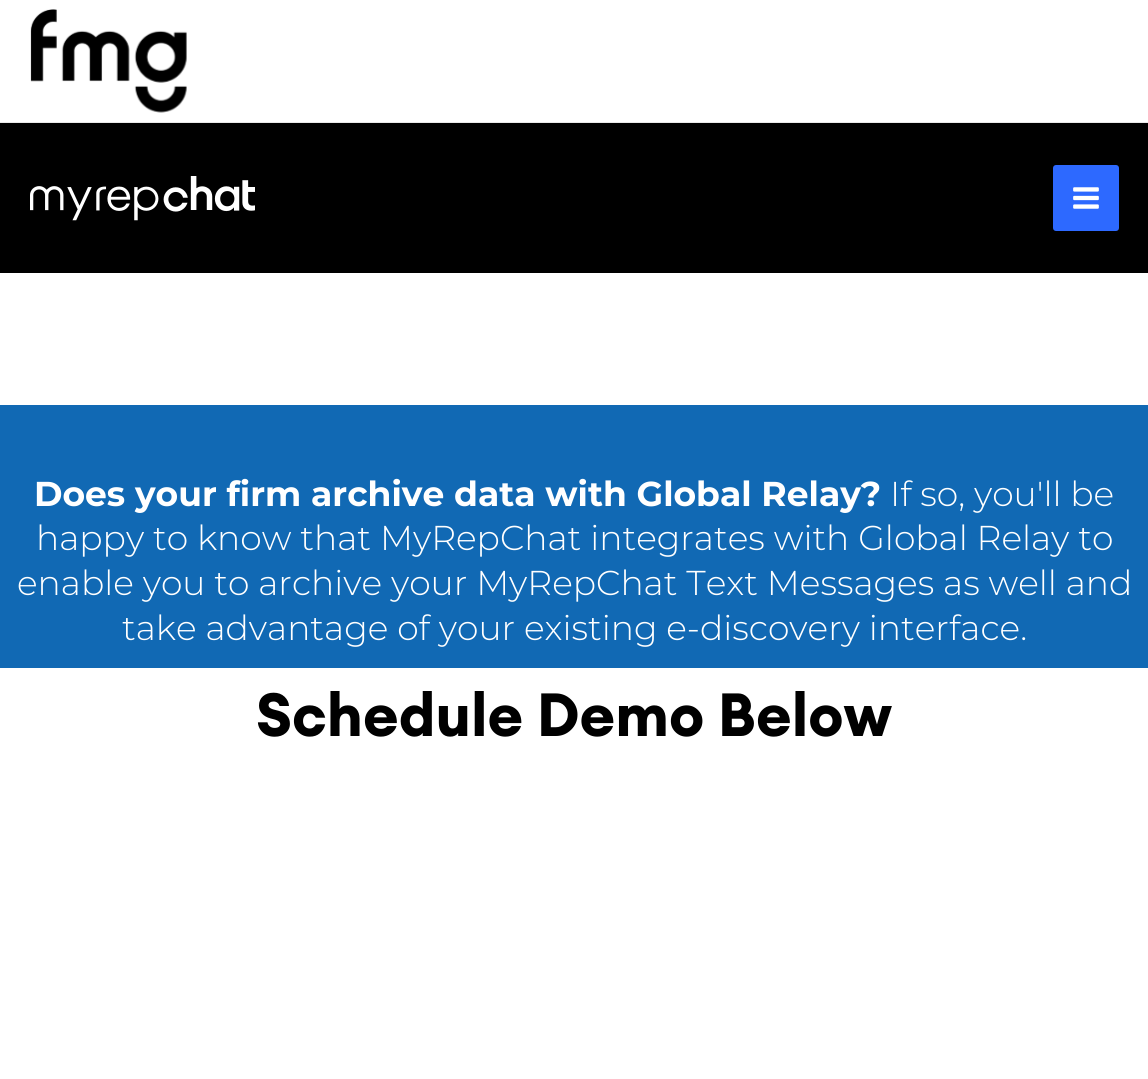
import math
import cairo

surface = cairo.ImageSurface(cairo.FORMAT_RGB24, 1148, 1079)
c = cairo.Context(surface)
options = cairo.FontOptions()
options.set_hint_metrics(cairo.HINT_METRICS_OFF)
options.set_hint_style(cairo.HINT_STYLE_NONE)
c.set_font_options(options)
c.set_miter_limit(4)
def C(code):
 c.set_source_rgb(*(v / 255 for v in bytes.fromhex(code[-6:])))
def F(family, size, italic, bold):
 c.select_font_face(family, cairo.FONT_SLANT_ITALIC if italic else cairo.FONT_SLANT_NORMAL, cairo.FONT_WEIGHT_BOLD if bold else cairo.FONT_WEIGHT_NORMAL)
 c.set_font_size(size)
def T(x, y, s):
 c.move_to(x, y)
 c.show_text(s)
def R(x, y, w, h):
 c.rectangle(x, y, w, h)
 c.fill()
def Q(x, y, w, h, r):
 c.new_sub_path()
 for i, (u, v) in enumerate([(x + w - r, y + h - r), (x + r, y + h - r), (x + r, y + r), (x + w - r, y + r)]):
  c.arc(u, v, r, i * math.pi / 2, (i + 1) * math.pi / 2)
 c.close_path()
def I(path, x, y, w, h):
 c.save()
 c.set_source_surface(cairo.ImageSurface.create_from_png(path), x, y)
 c.rectangle(x, y, w, h)
 c.fill()
 c.restore()
C('ffffff')
c.paint()
C('eaeaea')
R(0,122,1148,1)
I('1.png',30,9,157,104)
C('000000')
R(0,123,1148,150)
I('2.png',30,176,225,45)
C('2d69ff')
Q(1053,165,66,66,3)
c.fill()
I('3.png',1073,187,26,22)
C('1169b4')
R(0,405,1148,263)
F('Montserrat',34.5,0,1)
C('ffffff')
T(34,506,'Does your firm archive data with Global Relay?')
F('Montserrat Light',34.5,0,0)
T(890,506,'If so, you\'ll be')
T(36,550,'happy to know that MyRepChat integrates with Global Relay to')
T(17,595,'enable you to archive your MyRepChat Text Messages as well and')
T(122,640,'take advantage of your existing e-discovery interface.')
F('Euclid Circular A',60,0,1)
C('000000')
T(256,736,'Schedule Demo Below')
surface.write_to_png('o.png')
